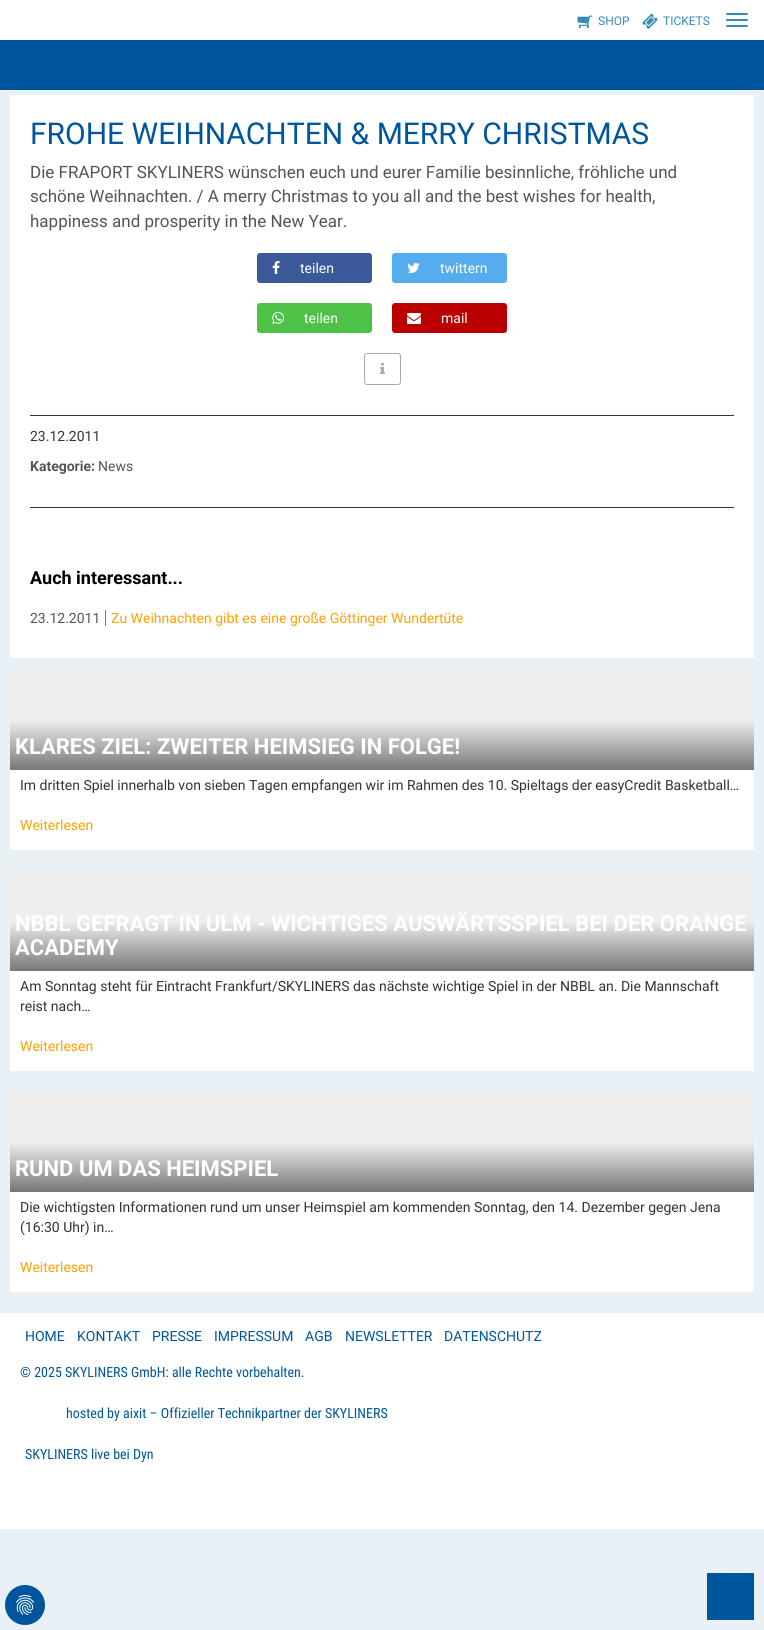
import math
import cairo

surface = cairo.ImageSurface(cairo.FORMAT_RGB24, 764, 1630)
c = cairo.Context(surface)
options = cairo.FontOptions()
options.set_hint_metrics(cairo.HINT_METRICS_OFF)
options.set_hint_style(cairo.HINT_STYLE_NONE)
c.set_font_options(options)
c.set_miter_limit(4)
def C(code):
 c.set_source_rgb(*(v / 255 for v in bytes.fromhex(code[-6:])))
def F(family, size, italic, bold):
 c.select_font_face(family, cairo.FONT_SLANT_ITALIC if italic else cairo.FONT_SLANT_NORMAL, cairo.FONT_WEIGHT_BOLD if bold else cairo.FONT_WEIGHT_NORMAL)
 c.set_font_size(size)
def T(x, y, s):
 c.move_to(x, y)
 c.show_text(s)
def R(x, y, w, h):
 c.rectangle(x, y, w, h)
 c.fill()
def Q(x, y, w, h, r):
 c.new_sub_path()
 for i, (u, v) in enumerate([(x + w - r, y + h - r), (x + r, y + h - r), (x + r, y + r), (x + w - r, y + r)]):
  c.arc(u, v, r, i * math.pi / 2, (i + 1) * math.pi / 2)
 c.close_path()
def I(path, x, y, w, h):
 c.save()
 c.set_source_surface(cairo.ImageSurface.create_from_png(path), x, y)
 c.rectangle(x, y, w, h)
 c.fill()
 c.restore()
C('e9f1f7')
c.paint()
C('00569c')
R(0,40,764,50)
C('ffffff')
R(0,0,764,40)
C('338cb6')
Q(726,13,22,2,1)
c.fill()
Q(726,19,22,2,1)
c.fill()
Q(726,25,22,2,1)
c.fill()
I('1.png',577,15,16,14)
F('Roboto',12,0,0)
T(598,25,'SHOP')
I('2.png',642,13,16,16)
T(663,25,'TICKETS')
C('ffffff')
R(10,95,744,563)
F('Roboto',30,0,0)
C('00569c')
T(30,144,'FROHE WEIHNACHTEN & MERRY CHRISTMAS')
F('Roboto',17,0,0)
C('555555')
T(30,178,'Die FRAPORT SKYLINERS wünschen euch und eurer Familie besinnliche, fröhliche und')
T(30,202,'schöne Weihnachten. / A merry Christmas to you all and the best wishes for health,')
T(30,227,'happiness and prosperity in the New Year.')
C('3b5998')
Q(257,253,115,30,3)
c.fill()
I('3.png',272,261,8,13)
F('Roboto',14,0,0)
C('ffffff')
T(300,273,'teilen')
C('55acee')
Q(392,253,115,30,3)
c.fill()
I('4.png',407,263,13,10)
C('ffffff')
T(440,273,'twittern')
C('4dc247')
Q(257,303,115,30,3)
c.fill()
I('5.png',272,312,12,12)
C('ffffff')
T(304,323,'teilen')
C('bb0000')
Q(392,303,115,30,3)
c.fill()
I('6.png',407,313,14,11)
C('ffffff')
T(441,323,'mail')
Q(364.5,353.5,36,31,2.5)
C('aaaaaa')
c.set_line_width(1)
c.stroke()
I('7.png',380,363,5,11)
C('333333')
R(30,415,704,1)
R(30,507,704,1)
T(30,441,'23.12.2011')
F('Roboto',14,0,1)
C('555555')
T(30,471,'Kategorie:')
F('Roboto',14,0,0)
T(98,471,'News')
F('Roboto',18,0,1)
C('000000')
T(30,584,'Auch interessant...')
F('Roboto',14,0,0)
C('555555')
T(30,623,'23.12.2011')
C('ffa100')
T(111,623,'Zu Weihnachten gibt es eine große Göttinger Wundertüte')
C('777777')
R(105,610,1,16)
C('ffffff')
R(10,770,744,80)
C('eeeeee')
R(10,850,744,1)
gradient = cairo.LinearGradient(382,670,382,770)
gradient.add_color_stop_rgba(0,0.933,0.933,0.933,1)
gradient.add_color_stop_rgba(.5,0.933,0.933,0.933,1)
gradient.add_color_stop_rgba(1,0.467,0.467,0.467,1)
c.set_source(gradient)
R(10,670,744,100)
F('Roboto',22,0,1)
C('ffffff')
T(15,754,'KLARES ZIEL: ZWEITER HEIMSIEG IN FOLGE!')
F('Roboto',14,0,0)
C('333333')
T(20,790,'Im dritten Spiel innerhalb von sieben Tagen empfangen wir im Rahmen des 10. Spieltags der easyCredit Basketball…')
C('ffa100')
T(20,830,'Weiterlesen')
C('ffffff')
R(10,971,744,100)
C('eeeeee')
R(10,1071,744,1)
gradient = cairo.LinearGradient(382,871,382,971)
gradient.add_color_stop_rgba(0,0.933,0.933,0.933,1)
gradient.add_color_stop_rgba(.5,0.933,0.933,0.933,1)
gradient.add_color_stop_rgba(1,0.467,0.467,0.467,1)
c.set_source(gradient)
R(10,871,744,100)
F('Roboto',22,0,1)
C('ffffff')
T(15,931,'NBBL GEFRAGT IN ULM - WICHTIGES AUSWÄRTSSPIEL BEI DER ORANGE')
T(15,955,'ACADEMY')
F('Roboto',14,0,0)
C('333333')
T(20,991,'Am Sonntag steht für Eintracht Frankfurt/SKYLINERS das nächste wichtige Spiel in der NBBL an. Die Mannschaft')
T(20,1011,'reist nach…')
C('ffa100')
T(20,1051,'Weiterlesen')
C('ffffff')
R(10,1192,744,100)
C('eeeeee')
R(10,1292,744,1)
gradient = cairo.LinearGradient(382,1092,382,1192)
gradient.add_color_stop_rgba(0,0.933,0.933,0.933,1)
gradient.add_color_stop_rgba(.5,0.933,0.933,0.933,1)
gradient.add_color_stop_rgba(1,0.467,0.467,0.467,1)
c.set_source(gradient)
R(10,1092,744,100)
F('Roboto',22,0,1)
C('ffffff')
T(15,1176,'RUND UM DAS HEIMSPIEL')
F('Roboto',14,0,0)
C('333333')
T(20,1212,'Die wichtigsten Informationen rund um unser Heimspiel am kommenden Sonntag, den 14. Dezember gegen Jena')
T(20,1232,'(16:30 Uhr) in…')
C('ffa100')
T(20,1272,'Weiterlesen')
C('ffffff')
R(0,1313,764,216)
C('00569c')
T(25,1341,'HOME')
T(77,1341,'KONTAKT')
T(152,1341,'PRESSE')
T(214,1341,'IMPRESSUM')
T(305,1341,'AGB')
T(345,1341,'NEWSLETTER')
T(444,1341,'DATENSCHUTZ')
F('Roboto Condensed',14,0,0)
T(20,1377,'© 2025 SKYLINERS GmbH: alle Rechte vorbehalten.')
T(66,1418,'hosted by aixit – Offizieller Technikpartner der SKYLINERS')
T(25,1459,'SKYLINERS live bei Dyn')
R(707,1573,47,47)
c.new_path()
c.arc(25,1605,20,0,2 * math.pi)
c.fill()
I('8.png',16,1595,18,20)
surface.write_to_png('o.png')
